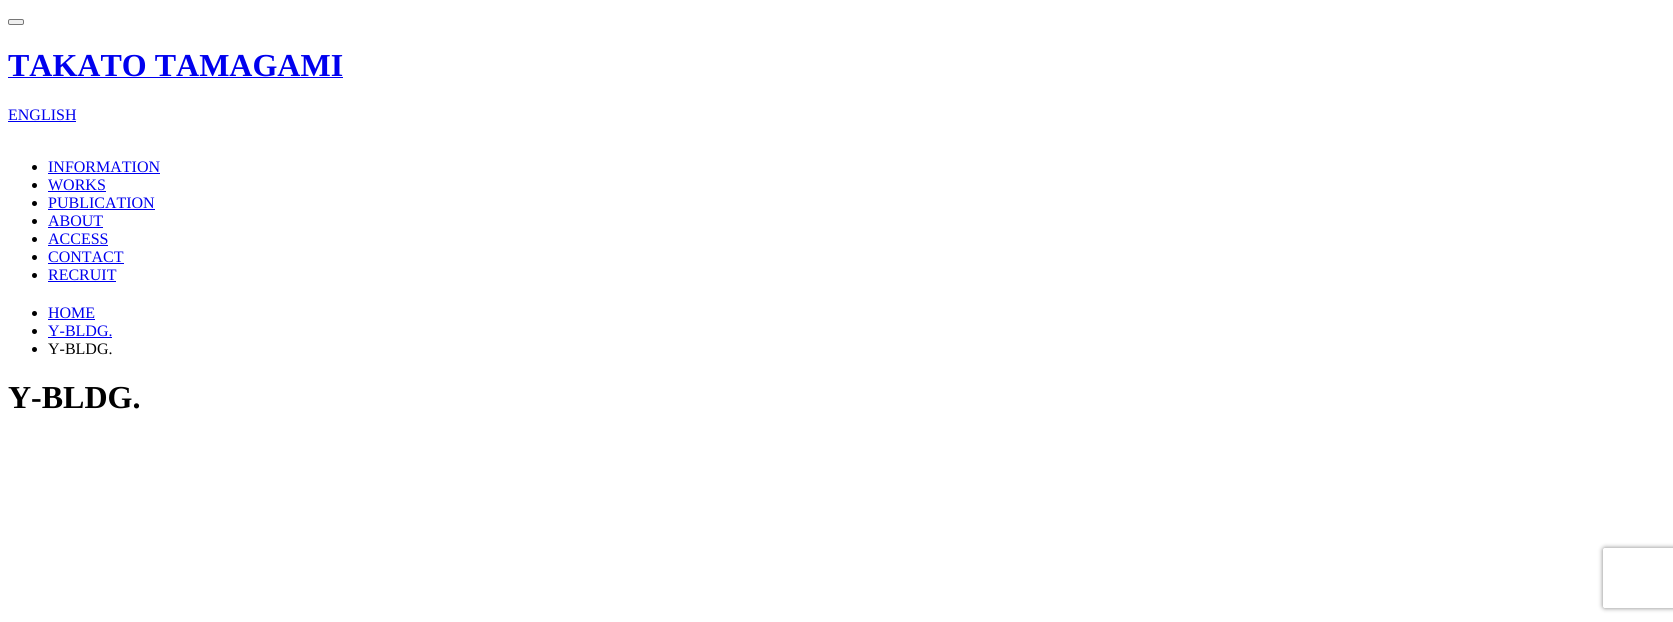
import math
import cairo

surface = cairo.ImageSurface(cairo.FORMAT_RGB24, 1673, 622)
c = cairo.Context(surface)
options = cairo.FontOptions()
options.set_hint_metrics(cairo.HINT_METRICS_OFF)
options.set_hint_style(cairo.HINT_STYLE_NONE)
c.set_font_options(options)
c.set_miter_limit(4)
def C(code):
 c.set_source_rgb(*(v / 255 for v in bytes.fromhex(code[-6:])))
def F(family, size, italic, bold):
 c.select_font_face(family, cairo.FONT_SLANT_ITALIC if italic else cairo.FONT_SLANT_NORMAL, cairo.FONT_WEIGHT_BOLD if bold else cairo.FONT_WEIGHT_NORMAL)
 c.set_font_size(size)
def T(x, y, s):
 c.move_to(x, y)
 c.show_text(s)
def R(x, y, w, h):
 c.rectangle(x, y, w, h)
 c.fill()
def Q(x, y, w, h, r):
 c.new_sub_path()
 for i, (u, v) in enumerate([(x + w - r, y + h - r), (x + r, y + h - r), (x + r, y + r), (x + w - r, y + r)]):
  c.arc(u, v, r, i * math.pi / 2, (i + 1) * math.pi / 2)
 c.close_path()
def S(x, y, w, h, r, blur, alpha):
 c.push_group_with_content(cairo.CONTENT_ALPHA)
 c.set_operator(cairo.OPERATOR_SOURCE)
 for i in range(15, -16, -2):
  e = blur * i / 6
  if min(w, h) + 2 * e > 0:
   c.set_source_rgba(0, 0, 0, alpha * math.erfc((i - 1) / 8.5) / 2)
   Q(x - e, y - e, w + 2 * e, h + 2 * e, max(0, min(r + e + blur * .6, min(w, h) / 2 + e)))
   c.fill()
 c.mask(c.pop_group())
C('ffffff')
c.paint()
C('efefef')
Q(8.5,19.5,15,5,1.5)
c.fill_preserve()
C('767676')
c.set_line_width(1)
c.stroke()
F('Liberation Serif',32,0,1)
C('0000ee')
T(8,76,'TAKATO TAMAGAMI')
R(8,77,335,1)
F('Liberation Serif',16,0,0)
T(8,120,'ENGLISH')
R(8,121,68,1)
C('000000')
c.new_path()
c.arc(34.5,167.5,2.5,0,2 * math.pi)
c.fill()
C('0000ee')
T(48,172,'INFORMATION')
R(48,173,112,1)
C('000000')
c.new_path()
c.arc(34.5,185.5,2.5,0,2 * math.pi)
c.fill()
C('0000ee')
T(48,190,'WORKS')
R(48,191,58,1)
C('000000')
c.new_path()
c.arc(34.5,203.5,2.5,0,2 * math.pi)
c.fill()
C('0000ee')
T(48,208,'PUBLICATION')
R(48,209,107,1)
C('000000')
c.new_path()
c.arc(34.5,221.5,2.5,0,2 * math.pi)
c.fill()
C('0000ee')
T(48,226,'ABOUT')
R(48,227,55,1)
C('000000')
c.new_path()
c.arc(34.5,239.5,2.5,0,2 * math.pi)
c.fill()
C('0000ee')
T(48,244,'ACCESS')
R(48,245,60,1)
C('000000')
c.new_path()
c.arc(34.5,257.5,2.5,0,2 * math.pi)
c.fill()
C('0000ee')
T(48,262,'CONTACT')
R(48,263,76,1)
C('000000')
c.new_path()
c.arc(34.5,275.5,2.5,0,2 * math.pi)
c.fill()
C('0000ee')
T(48,280,'RECRUIT')
R(48,281,68,1)
C('000000')
c.new_path()
c.arc(34.5,313.5,2.5,0,2 * math.pi)
c.fill()
C('0000ee')
T(48,318,'HOME')
R(48,319,47,1)
C('000000')
c.new_path()
c.arc(34.5,331.5,2.5,0,2 * math.pi)
c.fill()
C('0000ee')
T(48,336,'Y-BLDG.')
R(48,337,64,1)
C('000000')
c.new_path()
c.arc(34.5,349.5,2.5,0,2 * math.pi)
c.fill()
T(48,354,'Y-BLDG.')
F('Liberation Serif',32,0,1)
T(8,408,'Y-BLDG.')
c.save()
c.set_fill_rule(cairo.FILL_RULE_EVEN_ODD)
c.new_path()
c.move_to(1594,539)
c.line_to(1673,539)
c.line_to(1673,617)
c.line_to(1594,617)
c.close_path()
c.move_to(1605,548)
c.line_to(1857,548)
c.curve_to(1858,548,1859,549,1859,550)
c.line_to(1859,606)
c.curve_to(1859,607,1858,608,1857,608)
c.line_to(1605,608)
c.curve_to(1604,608,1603,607,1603,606)
c.line_to(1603,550)
c.curve_to(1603,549,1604,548,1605,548)
c.close_path()
c.clip()
C('808080')
S(1603,548,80,60,2,2.5,1)
c.restore()
surface.write_to_png('o.png')
